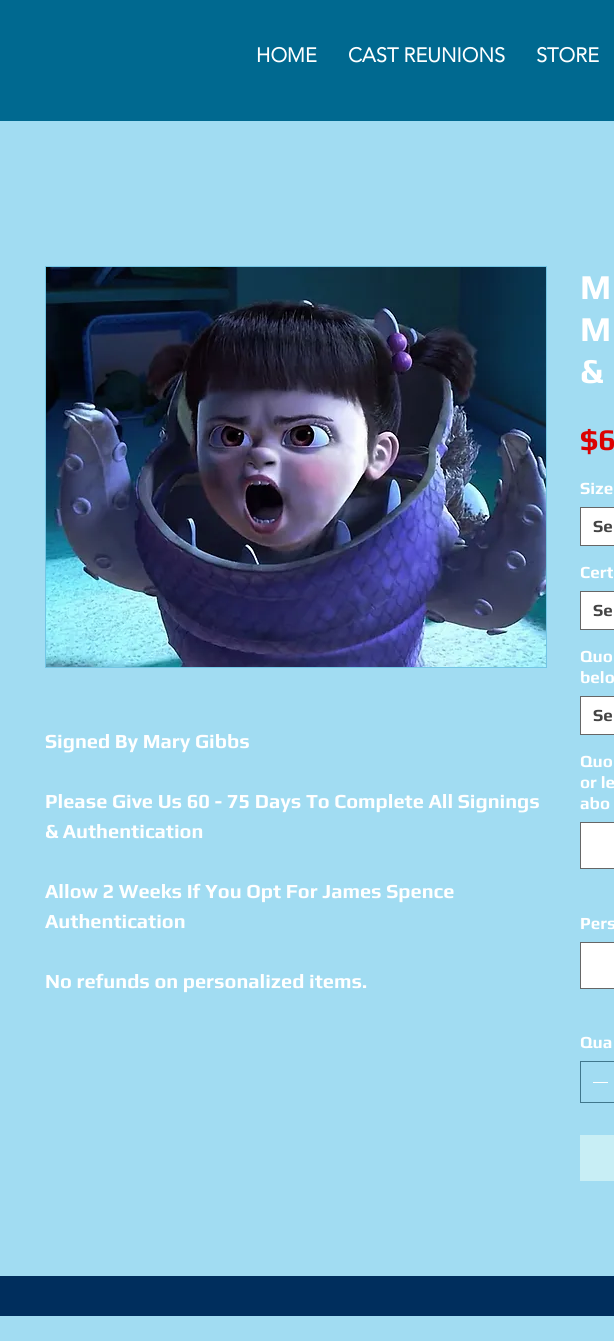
import math
import cairo

surface = cairo.ImageSurface(cairo.FORMAT_RGB24, 614, 1341)
c = cairo.Context(surface)
options = cairo.FontOptions()
options.set_hint_metrics(cairo.HINT_METRICS_OFF)
options.set_hint_style(cairo.HINT_STYLE_NONE)
c.set_font_options(options)
c.set_miter_limit(4)
def C(code):
 c.set_source_rgb(*(v / 255 for v in bytes.fromhex(code[-6:])))
def F(family, size, italic, bold):
 c.select_font_face(family, cairo.FONT_SLANT_ITALIC if italic else cairo.FONT_SLANT_NORMAL, cairo.FONT_WEIGHT_BOLD if bold else cairo.FONT_WEIGHT_NORMAL)
 c.set_font_size(size)
def T(x, y, s):
 c.move_to(x, y)
 c.show_text(s)
def R(x, y, w, h):
 c.rectangle(x, y, w, h)
 c.fill()
def I(path, x, y, w, h):
 c.save()
 c.set_source_surface(cairo.ImageSurface.create_from_png(path), x, y)
 c.rectangle(x, y, w, h)
 c.fill()
 c.restore()
C('a1dcf2')
c.paint()
C('006990')
R(0,0,614,121)
F('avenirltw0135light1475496',20,0,1)
C('ffffff')
T(256,62,'HOME')
T(348,62,'CAST REUNIONS')
T(536,62,'STORE')
c.rectangle(45.5,266.5,501,401)
C('72c6e5')
c.set_line_width(1)
c.stroke()
I('1.png',46,267,500,400)
F('Play',20,0,1)
C('ffffff')
T(45,748,'Signed By Mary Gibbs')
T(45,808,'Please Give Us 60 - 75 Days To Complete All Signings')
T(45,838,'& Authentication')
T(45,898,'Allow 2 Weeks If You Opt For James Spence')
T(45,928,'Authentication')
T(45,988,'No refunds on personalized items.')
F('Play',35,0,1)
T(580,299,'M')
T(580,341,'M')
T(580,383,'&')
F('Play',30,0,1)
C('db0202')
T(580,450,'$6')
F('Play',17,0,1)
C('ffffff')
T(580,494,'Size')
c.rectangle(580.5,507.5,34,38)
c.fill_preserve()
C('666666')
c.stroke()
C('444444')
T(593,532,'Se')
C('ffffff')
T(580,578,'Cert')
c.rectangle(580.5,591.5,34,38)
c.fill_preserve()
C('666666')
c.stroke()
C('444444')
T(593,616,'Se')
C('ffffff')
T(580,662,'Quo')
T(580,683,'belo')
c.rectangle(580.5,696.5,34,38)
c.fill_preserve()
C('666666')
c.stroke()
C('444444')
T(593,721,'Se')
C('ffffff')
T(580,767,'Quo')
T(580,788,'or le')
T(580,809,'abo')
c.rectangle(580.5,822.5,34,46)
c.fill_preserve()
C('666666')
c.stroke()
C('ffffff')
T(580,929,'Pers')
c.rectangle(580.5,942.5,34,46)
c.fill_preserve()
C('666666')
c.stroke()
C('ffffff')
T(580,1048,'Qua')
c.rectangle(580.5,1061.5,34,41)
C('40778c')
c.stroke()
C('ffffff')
R(593,1082,15,1)
C('c8eef5')
R(580,1135,34,46)
C('002e5d')
R(0,1276,614,40)
surface.write_to_png('o.png')
